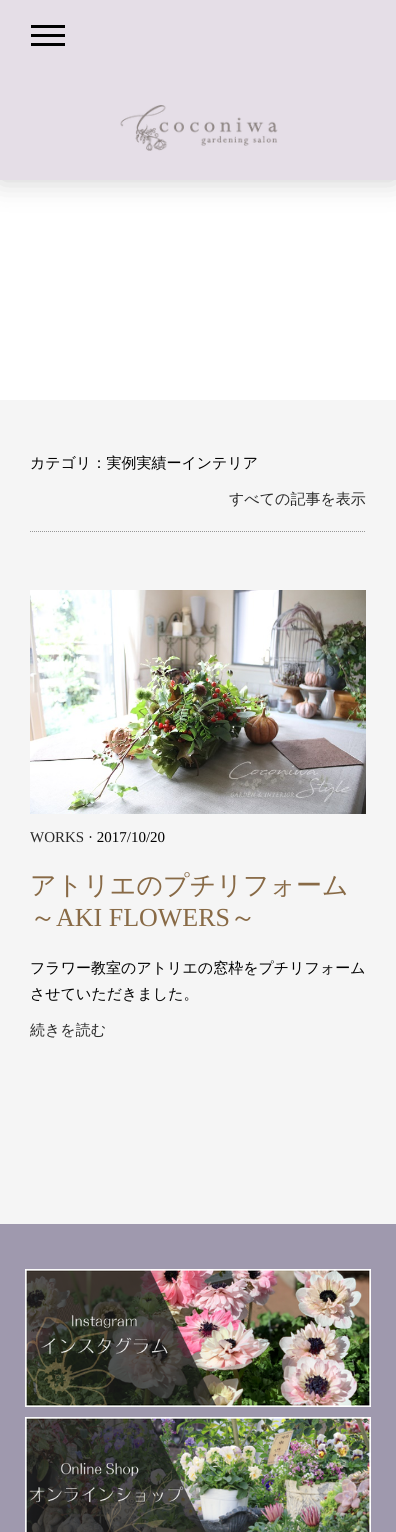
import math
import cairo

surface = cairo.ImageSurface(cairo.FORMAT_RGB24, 396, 1532)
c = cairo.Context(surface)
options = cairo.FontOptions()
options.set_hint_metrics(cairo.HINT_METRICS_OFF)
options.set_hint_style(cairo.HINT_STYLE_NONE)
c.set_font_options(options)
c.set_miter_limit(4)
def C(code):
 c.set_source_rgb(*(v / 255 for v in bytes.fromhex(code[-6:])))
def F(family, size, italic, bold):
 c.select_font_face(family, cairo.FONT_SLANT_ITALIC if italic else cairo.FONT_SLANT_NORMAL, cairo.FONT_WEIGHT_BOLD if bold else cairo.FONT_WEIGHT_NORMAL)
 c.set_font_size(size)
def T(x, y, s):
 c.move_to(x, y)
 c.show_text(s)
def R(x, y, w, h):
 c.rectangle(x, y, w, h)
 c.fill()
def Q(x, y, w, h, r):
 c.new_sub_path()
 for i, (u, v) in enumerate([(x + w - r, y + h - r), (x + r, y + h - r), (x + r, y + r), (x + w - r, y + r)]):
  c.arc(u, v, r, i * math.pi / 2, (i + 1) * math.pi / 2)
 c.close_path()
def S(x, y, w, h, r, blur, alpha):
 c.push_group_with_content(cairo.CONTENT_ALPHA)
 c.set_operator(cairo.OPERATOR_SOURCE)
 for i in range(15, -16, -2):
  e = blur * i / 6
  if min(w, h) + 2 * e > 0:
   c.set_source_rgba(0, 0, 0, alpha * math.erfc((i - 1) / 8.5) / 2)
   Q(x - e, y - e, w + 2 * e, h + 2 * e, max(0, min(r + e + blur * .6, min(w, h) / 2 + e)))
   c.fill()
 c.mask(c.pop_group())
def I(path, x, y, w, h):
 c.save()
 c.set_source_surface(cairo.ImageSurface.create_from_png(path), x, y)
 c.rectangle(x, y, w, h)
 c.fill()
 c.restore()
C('ffffff')
c.paint()
C('000000')
S(0,75,396,105,0,15,.2)
C('e5dee7')
R(0,0,396,180)
I('1.png',120,105,158,46)
C('000000')
R(31,34,34,3)
R(31,25,34,3)
R(31,43,34,3)
C('f5f5f5')
R(0,400,396,824)
F('WenQuanYi Zen Hei Medium',15,0,0)
C('000000')
T(30,468,'カテゴリ：実例実績ーインテリア')
C('2a2a2a')
T(229,504,'すべての記事を表示')
c.new_path()
c.move_to(30,531.5)
c.line_to(366,531.5)
C('969696')
c.set_line_width(1)
c.set_dash([1,1])
c.stroke()
I('2.png',30,590,336,224)
F('Liberation Serif',15,0,0)
C('2a2a2a')
T(30,842,'WORKS')
C('000000')
T(88,842,'· 2017/10/20')
F('WenQuanYi Zen Hei Medium',26,0,0)
C('886a46')
T(30,894,'アトリエのプチリフォーム')
T(30,926,'～')
F('Liberation Serif',26,0,0)
T(56,926,'AKI FLOWERS')
F('WenQuanYi Zen Hei Medium',26,0,0)
T(230,926,'～')
F('WenQuanYi Zen Hei Medium',15,0,0)
C('000000')
T(30,973,'フラワー教室のアトリエの窓枠をプチリフォーム')
T(30,999,'させていただきました。')
C('2a2a2a')
T(30,1035,'続きを読む')
C('9f99ae')
R(0,1224,396,308)
I('3.png',25,1269,346,138)
I('4.png',25,1417,346,115)
surface.write_to_png('o.png')
